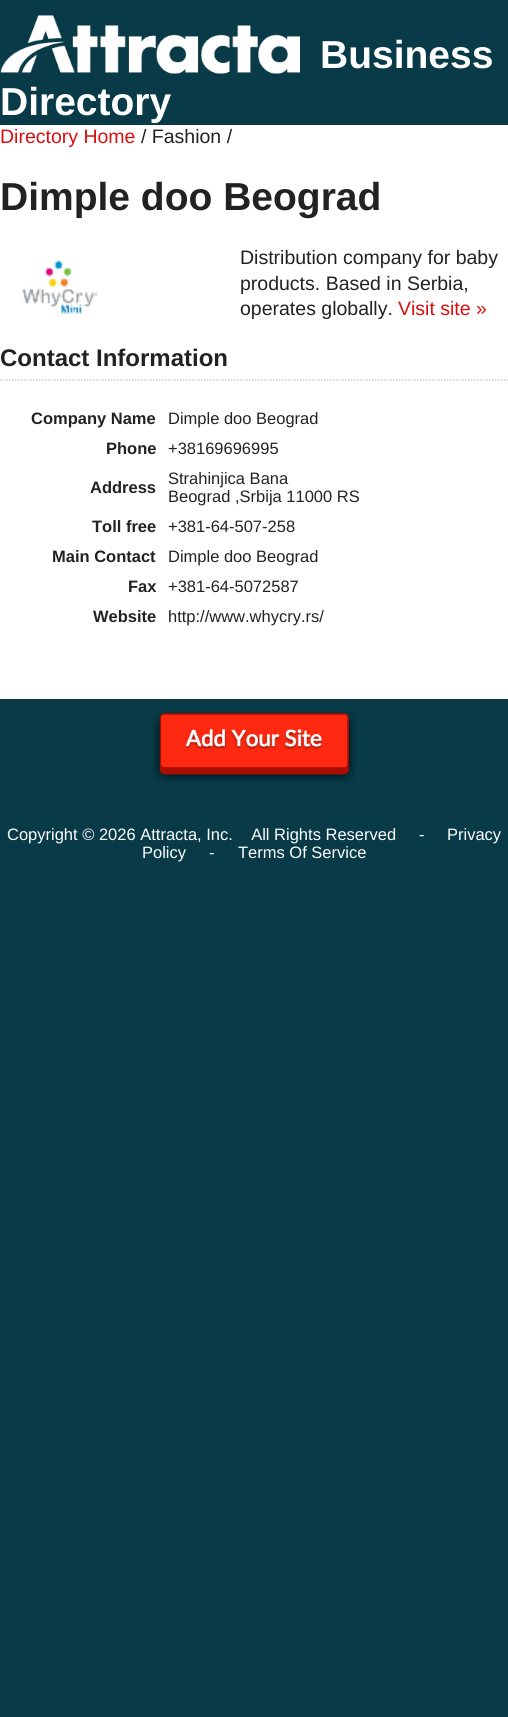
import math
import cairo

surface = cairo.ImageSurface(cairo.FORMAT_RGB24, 508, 1717)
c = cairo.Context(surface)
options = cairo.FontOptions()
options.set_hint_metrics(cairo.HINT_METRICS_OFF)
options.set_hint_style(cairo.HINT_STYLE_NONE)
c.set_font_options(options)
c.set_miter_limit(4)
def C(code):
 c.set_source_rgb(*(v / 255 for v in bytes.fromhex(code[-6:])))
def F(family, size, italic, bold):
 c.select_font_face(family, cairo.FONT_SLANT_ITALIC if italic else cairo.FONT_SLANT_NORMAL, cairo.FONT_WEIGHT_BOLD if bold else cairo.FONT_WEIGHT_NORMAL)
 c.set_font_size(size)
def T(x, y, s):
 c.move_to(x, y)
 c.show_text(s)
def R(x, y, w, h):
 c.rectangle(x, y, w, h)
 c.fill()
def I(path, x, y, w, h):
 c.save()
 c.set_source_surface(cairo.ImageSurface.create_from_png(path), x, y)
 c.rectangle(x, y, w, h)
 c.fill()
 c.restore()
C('083a48')
c.paint()
I('1.png',0,15,300,59)
F('Liberation Sans',39,0,1)
C('ffffff')
T(320,68,'Business')
T(0,115,'Directory')
R(0,125,508,574)
F('Liberation Sans',19.5,0,0)
C('d80f0f')
T(0,143,'Directory Home')
C('222222')
T(141,143,'/ Fashion /')
F('Liberation Sans',39,0,1)
T(0,210,'Dimple doo Beograd')
I('2.png',22,258,76,59)
F('Liberation Sans',19.5,0,0)
T(240,264,'Distribution company for baby')
T(240,290,'products. Based in Serbia,')
T(240,315,'operates globally.')
C('d80f0f')
T(398,315,'Visit site »')
c.new_path()
c.move_to(0,380)
c.line_to(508.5,380)
C('cccccc')
c.set_line_width(1.5)
c.set_dash([1.5,1.5])
c.stroke()
F('Liberation Sans',24,0,1)
C('222222')
T(0,366,'Contact Information')
F('Liberation Sans',16.5,0,1)
T(31,424,'Company Name')
F('Liberation Sans',16.5,0,0)
T(168,424,'Dimple doo Beograd')
F('Liberation Sans',16.5,0,1)
T(106,454,'Phone')
F('Liberation Sans',16.5,0,0)
T(168,454,'+38169696995')
F('Liberation Sans',16.5,0,1)
T(90,493,'Address')
F('Liberation Sans',16.5,0,0)
T(168,484,'Strahinjica Bana')
T(168,502,'Beograd ,Srbija 11000 RS')
F('Liberation Sans',16.5,0,1)
T(92,532,'Toll free')
F('Liberation Sans',16.5,0,0)
T(168,532,'+381-64-507-258')
F('Liberation Sans',16.5,0,1)
T(52,562,'Main Contact')
F('Liberation Sans',16.5,0,0)
T(168,562,'Dimple doo Beograd')
F('Liberation Sans',16.5,0,1)
T(128,592,'Fax')
F('Liberation Sans',16.5,0,0)
T(168,592,'+381-64-5072587')
F('Liberation Sans',16.5,0,1)
T(93,622,'Website')
F('Liberation Sans',16.5,0,0)
T(168,622,'http://www.whycry.rs/')
I('3.png',153,712,203,70)
C('ffffff')
T(7,840,'Copyright © 2026 Attracta, Inc.    All Rights Reserved     -')
T(447,840,'Privacy')
T(142,858,'Policy')
T(209,858,'-')
T(238,858,'Terms Of Service')
surface.write_to_png('o.png')
